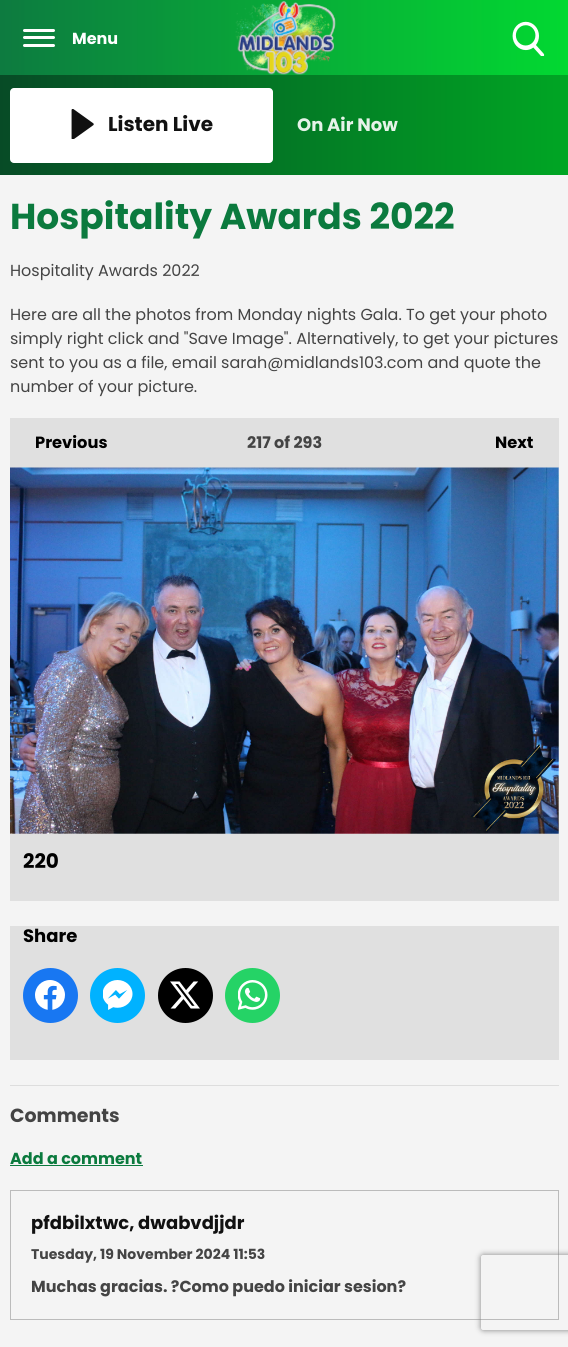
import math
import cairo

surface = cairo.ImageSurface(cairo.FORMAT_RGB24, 568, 1347)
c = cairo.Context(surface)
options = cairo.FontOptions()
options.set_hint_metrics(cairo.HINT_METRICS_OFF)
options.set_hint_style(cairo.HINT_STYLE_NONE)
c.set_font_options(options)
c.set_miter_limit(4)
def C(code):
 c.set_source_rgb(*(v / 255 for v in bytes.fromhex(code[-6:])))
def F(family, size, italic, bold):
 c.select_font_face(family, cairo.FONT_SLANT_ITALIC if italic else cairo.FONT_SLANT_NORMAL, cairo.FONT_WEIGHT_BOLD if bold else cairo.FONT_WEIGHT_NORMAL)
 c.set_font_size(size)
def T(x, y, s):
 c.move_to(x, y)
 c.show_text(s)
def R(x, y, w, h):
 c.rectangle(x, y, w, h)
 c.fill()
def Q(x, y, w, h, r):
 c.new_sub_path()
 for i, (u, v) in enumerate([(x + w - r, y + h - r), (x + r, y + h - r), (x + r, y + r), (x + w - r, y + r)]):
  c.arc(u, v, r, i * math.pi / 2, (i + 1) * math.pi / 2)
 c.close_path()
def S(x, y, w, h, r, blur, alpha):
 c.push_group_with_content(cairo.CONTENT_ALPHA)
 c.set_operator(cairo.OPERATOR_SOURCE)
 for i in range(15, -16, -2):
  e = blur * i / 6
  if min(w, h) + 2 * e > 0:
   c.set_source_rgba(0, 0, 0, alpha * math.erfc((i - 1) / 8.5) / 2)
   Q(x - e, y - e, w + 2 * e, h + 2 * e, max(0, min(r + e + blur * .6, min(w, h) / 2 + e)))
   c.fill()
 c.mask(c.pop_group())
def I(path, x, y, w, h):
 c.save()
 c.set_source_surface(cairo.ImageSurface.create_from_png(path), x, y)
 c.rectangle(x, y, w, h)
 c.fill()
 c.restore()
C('f4f4f4')
c.paint()
gradient = cairo.LinearGradient(0,38,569,37)
gradient.add_color_stop_rgba(0,0.133,0.525,0.314,1)
gradient.add_color_stop_rgba(1,0.094,0.863,0.263,1)
c.set_source(gradient)
R(0,0,568,75)
gradient = cairo.LinearGradient(0,38,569,37)
gradient.add_color_stop_rgba(0,0.043,0.478,0.243,.9)
gradient.add_color_stop_rgba(1,0,0.851,0.184,.9)
c.set_source(gradient)
R(0,0,568,75)
C('ffffff')
Q(23,29,32,3,1.5)
c.fill()
Q(23,36,32,3,1.5)
c.fill()
Q(23,44,32,3,1.5)
c.fill()
F('Poppins',16,0,1)
T(72,44,'Menu')
I('1.png',512,21,33,35)
I('2.png',235,1,101,74)
gradient = cairo.LinearGradient(0,125,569,125)
gradient.add_color_stop_rgba(0,0.027,0.294,0.149,1)
gradient.add_color_stop_rgba(1,0,0.651,0.141,1)
c.set_source(gradient)
R(0,75,568,100)
C('ffffff')
Q(10,88,263,75,4)
c.fill()
I('3.png',71,109,23,30)
F('Poppins',20,0,1)
C('111111')
T(108,131,'Listen Live')
F('Poppins',18,0,1)
C('e6f3e9')
T(297,131,'On Air Now')
F('Poppins',36,0,1)
C('0b7a3e')
T(10,229,'Hospitality Awards 2022')
F('Poppins',16,0,0)
C('444444')
T(10,276,'Hospitality Awards 2022')
T(10,320,'Here are all the photos from Monday nights Gala. To get your photo')
T(10,344,'simply right click and "Save Image". Alternatively, to get your pictures')
T(10,368,'sent to you as a file, email sarah@midlands103.com and quote the')
T(10,392,'number of your picture.')
C('e0e0e0')
R(10,418,549,50)
F('Poppins',16.25,0,1)
C('000000')
T(35,448,'Previous')
F('Poppins',16,0,1)
C('444444')
T(247,448,'217 of 293')
F('Poppins',16.25,0,1)
C('000000')
T(495,448,'Next')
C('ffffff')
R(10,468,549,366)
I('4.png',10,467,549,367)
C('e0e0e0')
R(10,834,549,67)
F('Poppins',20,0,1)
C('000000')
T(23,868,'220')
C('e0e0e0')
R(10,926,549,134)
F('Poppins',18,0,1)
C('000000')
T(23,942,'Share')
C('1877f2')
c.new_path()
c.arc(50.5,995.5,27.5,0,2 * math.pi)
c.fill()
I('5.png',35,980,30,30)
C('00b2ff')
c.arc(117.5,995.5,27.5,0,2 * math.pi)
c.fill()
I('6.png',103,980,30,30)
C('000000')
c.arc(185.5,995.5,27.5,0,2 * math.pi)
c.fill()
I('7.png',170,981,30,28)
C('25d366')
c.arc(252.5,995.5,27.5,0,2 * math.pi)
c.fill()
I('8.png',238,980,30,30)
C('dddddd')
R(10,1085,549,1)
F('Poppins',19,0,1)
C('444444')
T(10,1122,'Comments')
F('Poppins',16,0,1)
C('0b7a3e')
T(10,1164,'Add a comment')
R(10,1165,133,1)
c.rectangle(10.5,1190.5,548,129)
C('bbbbbb')
c.set_line_width(1)
c.stroke()
F('Poppins',18,0,1)
C('111111')
T(31,1229,'pfdbilxtwc, dwabvdjjdr')
F('Poppins',14,0,1)
C('444444')
T(31,1259,'Tuesday, 19 November 2024 11:53')
F('Poppins',16,0,1)
T(31,1292,'Muchas gracias. ?Como puedo iniciar sesion?')
c.save()
c.set_fill_rule(cairo.FILL_RULE_EVEN_ODD)
c.new_path()
c.move_to(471,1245)
c.line_to(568,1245)
c.line_to(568,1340)
c.line_to(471,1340)
c.close_path()
c.move_to(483.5,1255)
c.line_to(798.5,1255)
c.curve_to(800,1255,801,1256,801,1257.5)
c.line_to(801,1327.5)
c.curve_to(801,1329,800,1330,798.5,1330)
c.line_to(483.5,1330)
c.curve_to(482,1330,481,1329,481,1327.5)
c.line_to(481,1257.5)
c.curve_to(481,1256,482,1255,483.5,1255)
c.close_path()
c.clip()
C('808080')
S(481,1255,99,75,2.5,3,1)
c.restore()
surface.write_to_png('o.png')
